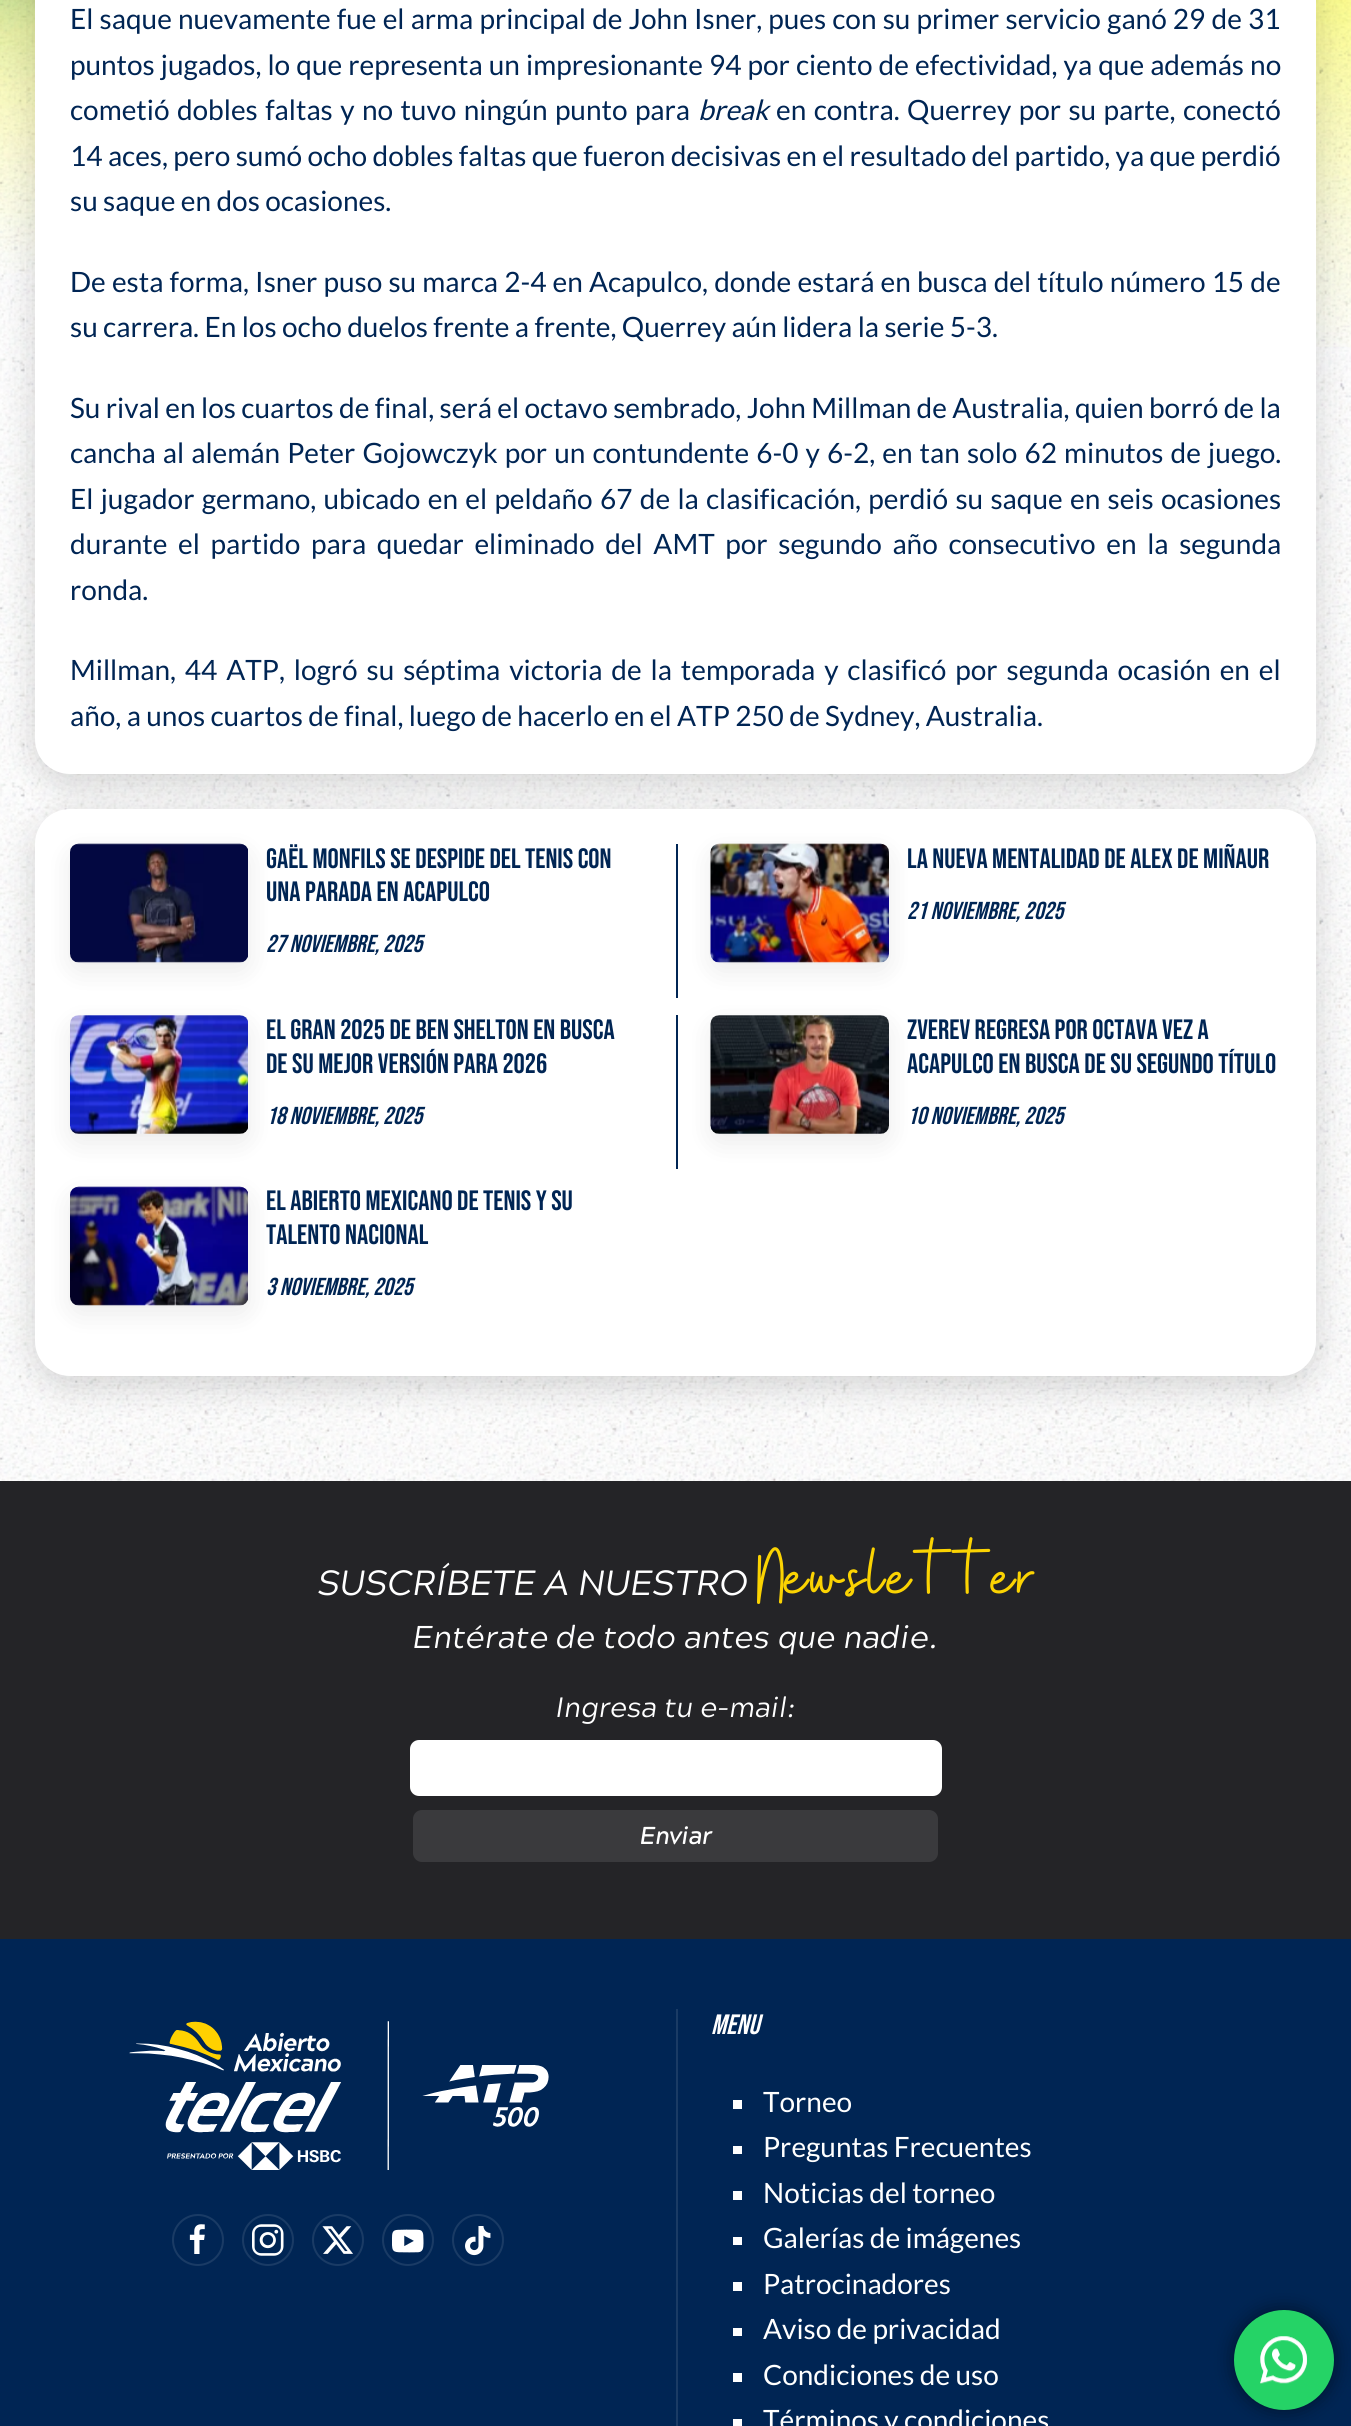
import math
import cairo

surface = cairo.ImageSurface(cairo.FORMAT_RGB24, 1351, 2426)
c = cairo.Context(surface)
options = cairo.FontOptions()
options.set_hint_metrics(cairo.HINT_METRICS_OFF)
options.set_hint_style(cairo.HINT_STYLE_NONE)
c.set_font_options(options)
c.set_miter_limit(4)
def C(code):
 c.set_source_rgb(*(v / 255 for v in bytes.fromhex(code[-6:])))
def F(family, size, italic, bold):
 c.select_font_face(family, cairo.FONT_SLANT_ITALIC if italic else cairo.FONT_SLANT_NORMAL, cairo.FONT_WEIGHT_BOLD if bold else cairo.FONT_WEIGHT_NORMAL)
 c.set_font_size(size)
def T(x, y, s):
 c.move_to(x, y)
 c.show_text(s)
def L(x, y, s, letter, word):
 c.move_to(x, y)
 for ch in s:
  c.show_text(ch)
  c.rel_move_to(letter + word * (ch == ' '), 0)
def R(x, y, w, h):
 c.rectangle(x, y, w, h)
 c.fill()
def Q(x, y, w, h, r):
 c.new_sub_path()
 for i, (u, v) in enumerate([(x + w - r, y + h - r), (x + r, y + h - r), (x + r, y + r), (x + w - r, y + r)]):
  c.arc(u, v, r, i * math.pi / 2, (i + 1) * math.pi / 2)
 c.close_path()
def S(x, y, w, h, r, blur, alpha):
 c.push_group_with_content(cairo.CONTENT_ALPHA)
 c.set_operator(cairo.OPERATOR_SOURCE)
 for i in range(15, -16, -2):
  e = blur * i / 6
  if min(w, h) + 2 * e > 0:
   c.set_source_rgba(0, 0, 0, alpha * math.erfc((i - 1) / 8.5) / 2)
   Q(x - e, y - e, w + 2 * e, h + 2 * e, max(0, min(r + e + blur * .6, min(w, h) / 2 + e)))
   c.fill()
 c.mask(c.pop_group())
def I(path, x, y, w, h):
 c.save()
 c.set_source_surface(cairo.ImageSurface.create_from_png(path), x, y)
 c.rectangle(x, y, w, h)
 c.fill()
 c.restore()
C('ffffff')
c.paint()
I('1.png',0,0,1351,347)
I('2.png',0,0,1351,1481)
C('000000')
S(35,-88,1281,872,35,17.5,.16)
C('ffffff')
Q(35,-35,1281,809,35)
c.fill()
F('Lato',28,0,0)
C('002554')
L(70,29,'El saque nuevamente fue el arma principal de John Isner, pues con su primer servicio ganó 29 de 31',0,.75)
L(70,75,'puntos jugados, lo que representa un impresionante 94 por ciento de efectividad, ya que además no',0,.7)
L(70,120,'cometió dobles faltas y no tuvo ningún punto para',0,2)
F('Lato',28,1,0)
T(698,120,'break')
F('Lato',28,0,0)
L(776,120,'en contra. Querrey por su parte, conectó',0,2)
T(70,166,'14 aces, pero sumó ocho dobles faltas que fueron decisivas en el resultado del partido, ya que perdió')
T(70,211,'su saque en dos ocasiones.')
L(70,292,'De esta forma, Isner puso su marca 2-4 en Acapulco, donde estará en busca del título número 15 de',0,.75)
T(70,337,'su carrera. En los ocho duelos frente a frente, Querrey aún lidera la serie 5-3.')
T(70,418,'Su rival en los cuartos de final, será el octavo sembrado, John Millman de Australia, quien borró de la')
L(70,463,'cancha al alemán Peter Gojowczyk por un contundente 6-0 y 6-2, en tan solo 62 minutos de juego.',0,1.7)
L(70,509,'El jugador germano, ubicado en el peldaño 67 de la clasificación, perdió su saque en seis ocasiones',0,1.9)
L(70,554,'durante el partido para quedar eliminado del AMT por segundo año consecutivo en la segunda',0,5.25)
T(70,600,'ronda.')
L(70,680,'Millman, 44 ATP, logró su séptima victoria de la temporada y clasificó por segunda ocasión en el',0,3.5)
T(70,726,'año, a unos cuartos de final, luego de hacerlo en el ATP 250 de Sydney, Australia.')
C('000000')
S(35,819,1281,567,35,17.5,.16)
C('ffffff')
Q(35,809,1281,567,35)
c.fill()
C('000000')
S(70,852,179,119,9,13,.08)
I('3.png',70,843,178,120)
F('Bebas Neue',28,0,0)
C('002554')
T(266,868,'Gaël Monfils se despide del tenis con')
T(266,901,'una parada en Acapulco')
F('Bebas Neue',24.5,1,0)
T(266,952,'27 noviembre, 2025')
R(676,844,2,154)
C('000000')
S(711,852,178,119,9,13,.08)
I('4.png',710,843,179,120)
F('Bebas Neue',28,0,0)
C('002554')
T(907,868,'La nueva mentalidad de Alex de Miñaur')
F('Bebas Neue',24.5,1,0)
T(907,919,'21 noviembre, 2025')
C('000000')
S(70,1024,179,119,9,13,.08)
I('5.png',70,1015,178,119)
F('Bebas Neue',28,0,0)
C('002554')
T(266,1039,'El gran 2025 de Ben Shelton en busca')
T(266,1073,'de su mejor versión para 2026')
F('Bebas Neue',24.5,1,0)
T(266,1124,'18 noviembre, 2025')
R(676,1015,2,154)
C('000000')
S(711,1024,178,119,9,13,.08)
I('6.png',710,1015,179,119)
F('Bebas Neue',28,0,0)
C('002554')
T(907,1039,'Zverev regresa por octava vez a')
T(907,1073,'Acapulco en busca de su segundo título')
F('Bebas Neue',24.5,1,0)
T(907,1124,'10 noviembre, 2025')
C('000000')
S(70,1195,179,119,9,13,.08)
I('7.png',70,1186,178,120)
F('Bebas Neue',28,0,0)
C('002554')
T(266,1210,'El Abierto Mexicano de Tenis y su')
T(266,1244,'talento nacional')
F('Bebas Neue',24.5,1,0)
T(266,1295,'3 noviembre, 2025')
C('242427')
R(0,1481,1351,458)
F('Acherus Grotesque',35,1,0)
C('ffffff')
T(318,1595,'SUSCRÍBETE A NUESTRO')
F('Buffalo',79,0,0)
C('fbd302')
T(757,1604,'Newsletter')
F('Acherus Grotesque',31.5,1,0)
C('ffffff')
T(413,1648,'Entérate de todo antes que nadie.')
F('Acherus Grotesque',28,1,0)
T(556,1717,'Ingresa tu e-mail:')
Q(410,1740,532,56,9)
c.fill()
C('3a3a3d')
Q(413,1810,525,52,9)
c.fill()
F('Acherus Grotesque',23.5,1,1)
C('ffffff')
T(640,1844,'Enviar')
C('002554')
R(0,1939,1351,487)
I('8.png',129,2021,420,149)
c.arc(198,2240,25,0,2 * math.pi)
C('1a3b65')
c.stroke()
I('9.png',189,2224,16,30)
c.arc(268,2240,25,0,2 * math.pi)
c.stroke()
I('10.png',252,2224,32,32)
c.arc(338,2240,25,0,2 * math.pi)
c.stroke()
I('11.png',322,2226,31,28)
c.arc(408,2240,25,0,2 * math.pi)
c.stroke()
I('12.png',392,2229,32,24)
c.arc(478,2240,25,0,2 * math.pi)
c.stroke()
I('13.png',465,2226,26,30)
R(676,2009,2,417)
F('Bebas Neue',28,1,0)
C('ffffff')
T(711,2034,'MENU')
R(733,2100,9,9)
F('Lato',28,0,0)
T(763,2112,'Torneo')
R(733,2146,9,8)
T(763,2157,'Preguntas Frecuentes')
R(733,2191,9,9)
T(763,2203,'Noticias del torneo')
R(733,2237,9,8)
T(763,2248,'Galerías de imágenes')
R(733,2282,9,9)
T(763,2294,'Patrocinadores')
R(733,2328,9,8)
T(763,2339,'Aviso de privacidad')
R(733,2373,9,9)
T(763,2385,'Condiciones de uso')
R(733,2419,9,7)
T(763,2430,'Términos y condiciones')
C('000000')
S(1234,2310,100,100,50,9.5,.5)
C('25d366')
c.arc(1284,2360,50,0,2 * math.pi)
c.fill()
I('14.png',1260,2336,48,48)
surface.write_to_png('o.png')
